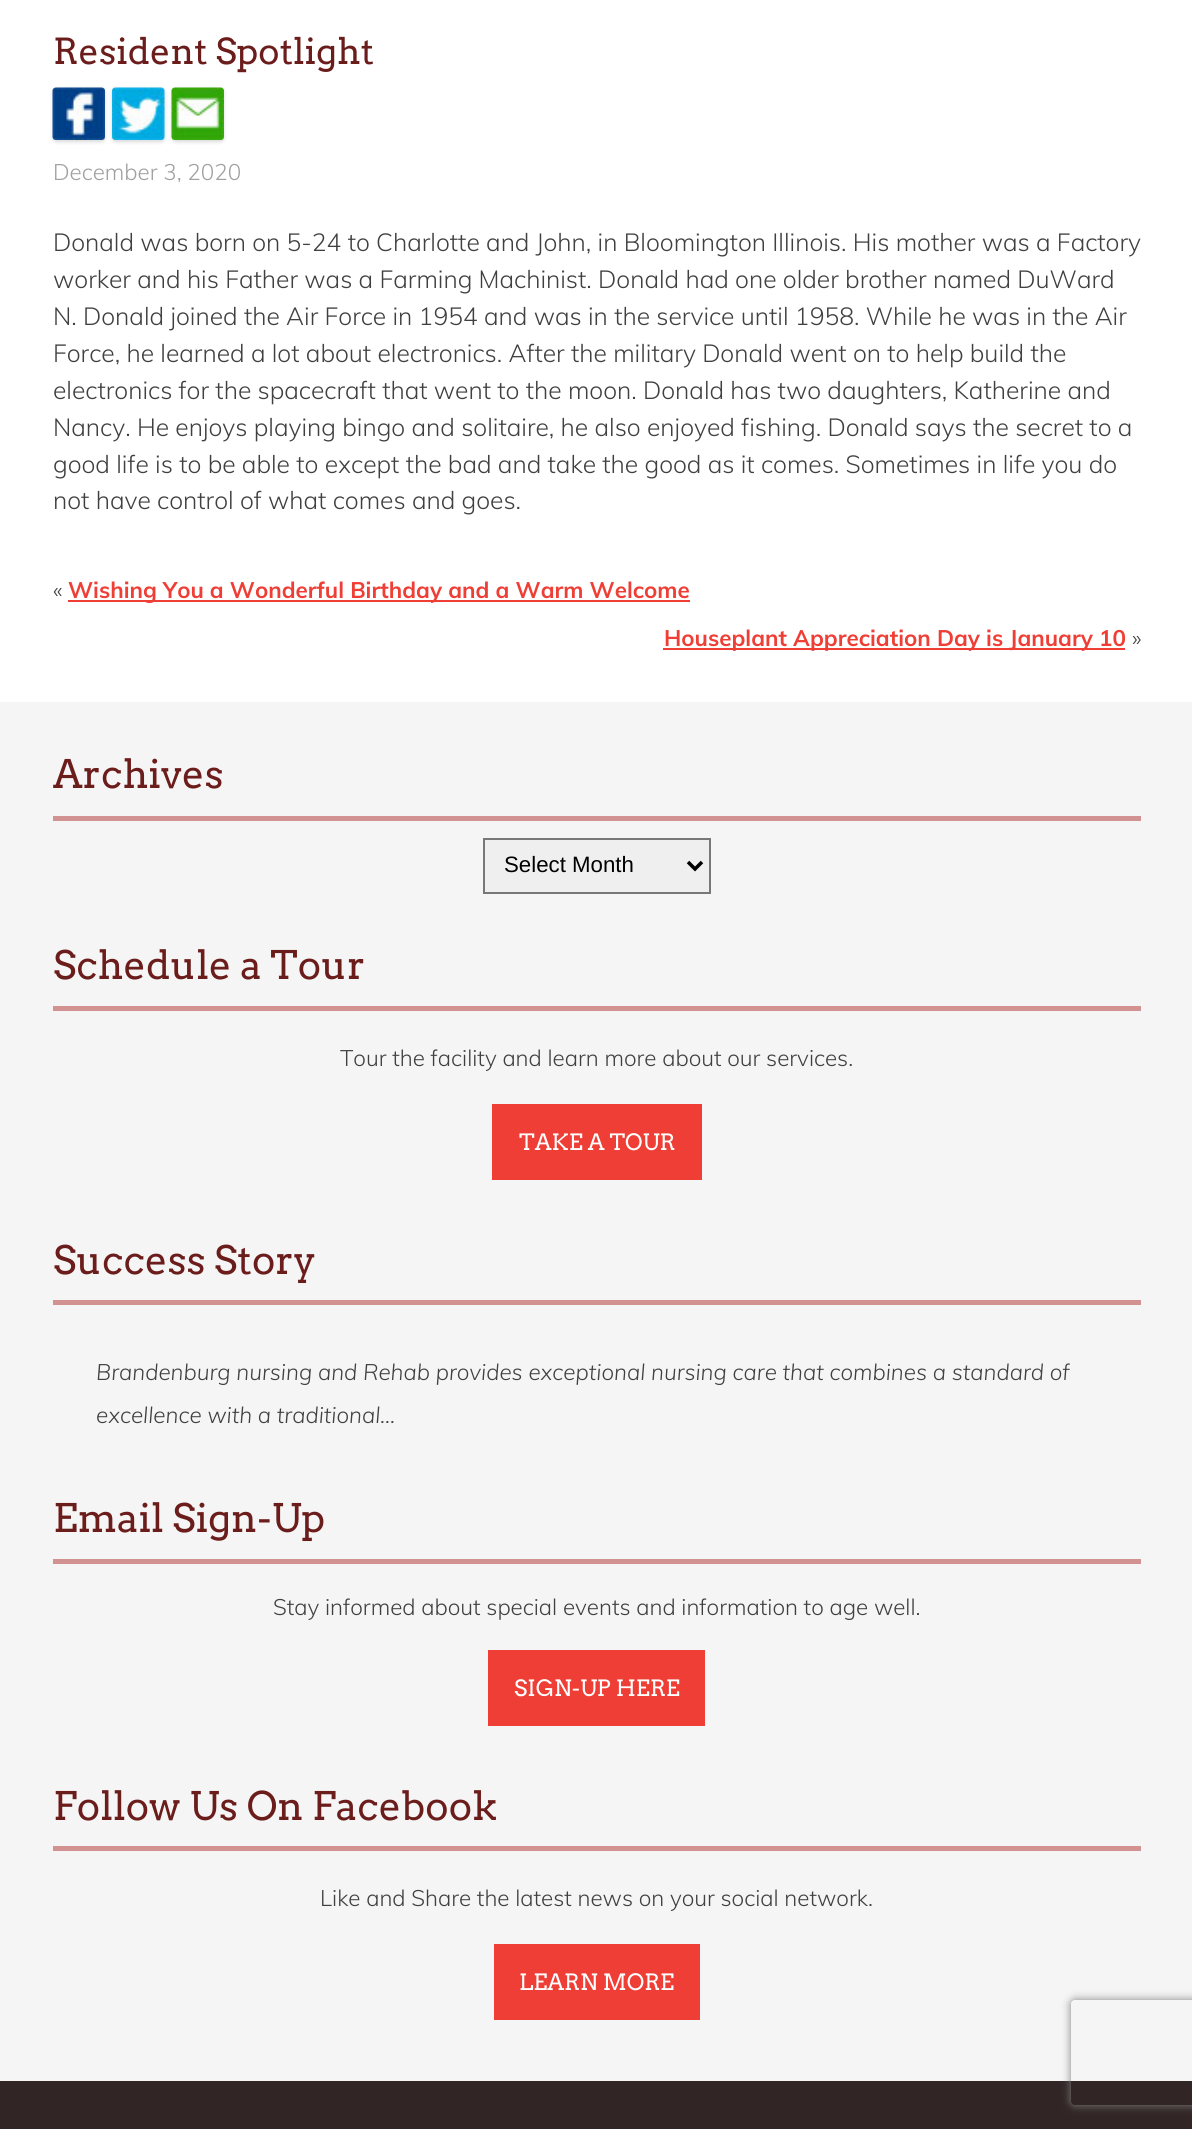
import math
import cairo

surface = cairo.ImageSurface(cairo.FORMAT_RGB24, 1192, 2129)
c = cairo.Context(surface)
options = cairo.FontOptions()
options.set_hint_metrics(cairo.HINT_METRICS_OFF)
options.set_hint_style(cairo.HINT_STYLE_NONE)
c.set_font_options(options)
c.set_miter_limit(4)
def C(code):
 c.set_source_rgb(*(v / 255 for v in bytes.fromhex(code[-6:])))
def F(family, size, italic, bold):
 c.select_font_face(family, cairo.FONT_SLANT_ITALIC if italic else cairo.FONT_SLANT_NORMAL, cairo.FONT_WEIGHT_BOLD if bold else cairo.FONT_WEIGHT_NORMAL)
 c.set_font_size(size)
def T(x, y, s):
 c.move_to(x, y)
 c.show_text(s)
def R(x, y, w, h):
 c.rectangle(x, y, w, h)
 c.fill()
def Q(x, y, w, h, r):
 c.new_sub_path()
 for i, (u, v) in enumerate([(x + w - r, y + h - r), (x + r, y + h - r), (x + r, y + r), (x + w - r, y + r)]):
  c.arc(u, v, r, i * math.pi / 2, (i + 1) * math.pi / 2)
 c.close_path()
def S(x, y, w, h, r, blur, alpha):
 c.push_group_with_content(cairo.CONTENT_ALPHA)
 c.set_operator(cairo.OPERATOR_SOURCE)
 for i in range(15, -16, -2):
  e = blur * i / 6
  if min(w, h) + 2 * e > 0:
   c.set_source_rgba(0, 0, 0, alpha * math.erfc((i - 1) / 8.5) / 2)
   Q(x - e, y - e, w + 2 * e, h + 2 * e, max(0, min(r + e + blur * .6, min(w, h) / 2 + e)))
   c.fill()
 c.mask(c.pop_group())
def I(path, x, y, w, h):
 c.save()
 c.set_source_surface(cairo.ImageSurface.create_from_png(path), x, y)
 c.rectangle(x, y, w, h)
 c.fill()
 c.restore()
C('ffffff')
c.paint()
F('Arvo',35.75,0,0)
C('6b1d1c')
T(53,64,'Resident Spotlight')
C('000000')
S(53,89,52,53,4,2,.15)
I('1.png',52,87,53,53)
S(112,89,53,53,4,2,.15)
I('2.png',112,87,53,53)
S(172,89,52,53,4,2,.15)
I('3.png',171,87,53,53)
F('Muli Light',22.4,0,0)
C('a0a0a0')
T(53,180,'December 3, 2020')
F('Muli Light',24.65,0,0)
C('404040')
T(53,251,'Donald was born on 5-24 to Charlotte and John, in Bloomington Illinois. His mother was a Factory')
T(53,288,'worker and his Father was a Farming Machinist. Donald had one older brother named DuWard')
T(53,325,'N. Donald joined the Air Force in 1954 and was in the service until 1958. While he was in the Air')
T(53,362,'Force, he learned a lot about electronics. After the military Donald went on to help build the')
T(53,399,'electronics for the spacecraft that went to the moon. Donald has two daughters, Katherine and')
T(53,436,'Nancy. He enjoys playing bingo and solitaire, he also enjoyed fishing. Donald says the secret to a')
T(53,473,'good life is to be able to except the bad and take the good as it comes. Sometimes in life you do')
T(53,509,'not have control of what comes and goes.')
F('Muli Light',22.4,0,0)
T(53,598,'«')
C('ef3e35')
R(68,600,622,2)
F('Muli',22.4,0,1)
T(68,598,'Wishing You a Wonderful Birthday and a Warm Welcome')
R(663,648,462,2)
T(664,646,'Houseplant Appreciation Day is January 10')
F('Muli Light',22.4,0,0)
C('404040')
T(1132,646,'»')
C('f5f5f5')
R(0,702,1192,1379)
C('d29291')
R(53,816,1088,5)
F('Arvo',39.25,0,0)
C('6b1d1c')
T(53,788,'Archives')
C('efefef')
c.rectangle(484,839,226,54)
c.fill_preserve()
C('787878')
c.stroke()
c.new_path()
c.move_to(688,862)
c.line_to(695,869)
c.line_to(702,862)
C('000000')
c.set_line_width(3.5)
c.stroke()
F('Liberation Sans',22.25,0,0)
T(504,872,'Select Month')
C('d29291')
R(53,1006,1088,5)
F('Arvo',39.25,0,0)
C('6b1d1c')
T(53,979,'Schedule a Tour')
F('Muli Light',22.4,0,0)
C('404040')
T(340,1066,'Tour the facility and learn more about our services.')
C('ef3e35')
R(492,1104,210,76)
F('Arvo',22.4,0,0)
C('ffffff')
T(519,1150,'TAKE A TOUR')
C('d29291')
R(53,1300,1088,5)
F('Arvo',39.25,0,0)
C('6b1d1c')
T(53,1274,'Success Story')
F('Muli Light',22.4,1,0)
C('404040')
T(96,1380,'Brandenburg nursing and Rehab provides exceptional nursing care that combines a standard of')
T(96,1423,'excellence with a traditional…')
C('d29291')
R(53,1559,1088,5)
F('Arvo',39.25,0,0)
C('6b1d1c')
T(53,1532,'Email Sign-Up')
F('Muli Light',22.4,0,0)
C('404040')
T(273,1615,'Stay informed about special events and information to age well.')
C('ef3e35')
R(488,1650,217,76)
F('Arvo',22.4,0,0)
C('ffffff')
T(514,1696,'SIGN-UP HERE')
C('d29291')
R(53,1846,1088,5)
F('Arvo',39.25,0,0)
C('6b1d1c')
T(53,1820,'Follow Us On Facebook')
F('Muli Light',22.4,0,0)
C('404040')
T(320,1906,'Like and Share the latest news on your social network.')
C('ef3e35')
R(494,1944,206,76)
F('Arvo',22.4,0,0)
C('ffffff')
T(519,1990,'LEARN MORE')
C('312525')
R(0,2081,1192,48)
c.save()
c.set_fill_rule(cairo.FILL_RULE_EVEN_ODD)
c.new_path()
c.move_to(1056,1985)
c.line_to(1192,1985)
c.line_to(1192,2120)
c.line_to(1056,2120)
c.close_path()
c.move_to(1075,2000)
c.line_to(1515,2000)
c.curve_to(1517,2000,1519,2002,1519,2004)
c.line_to(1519,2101)
c.curve_to(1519,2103,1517,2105,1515,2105)
c.line_to(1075,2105)
c.curve_to(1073,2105,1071,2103,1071,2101)
c.line_to(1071,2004)
c.curve_to(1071,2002,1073,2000,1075,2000)
c.close_path()
c.clip()
C('808080')
S(1071,2000,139,105,4,4.5,1)
c.restore()
surface.write_to_png('o.png')
